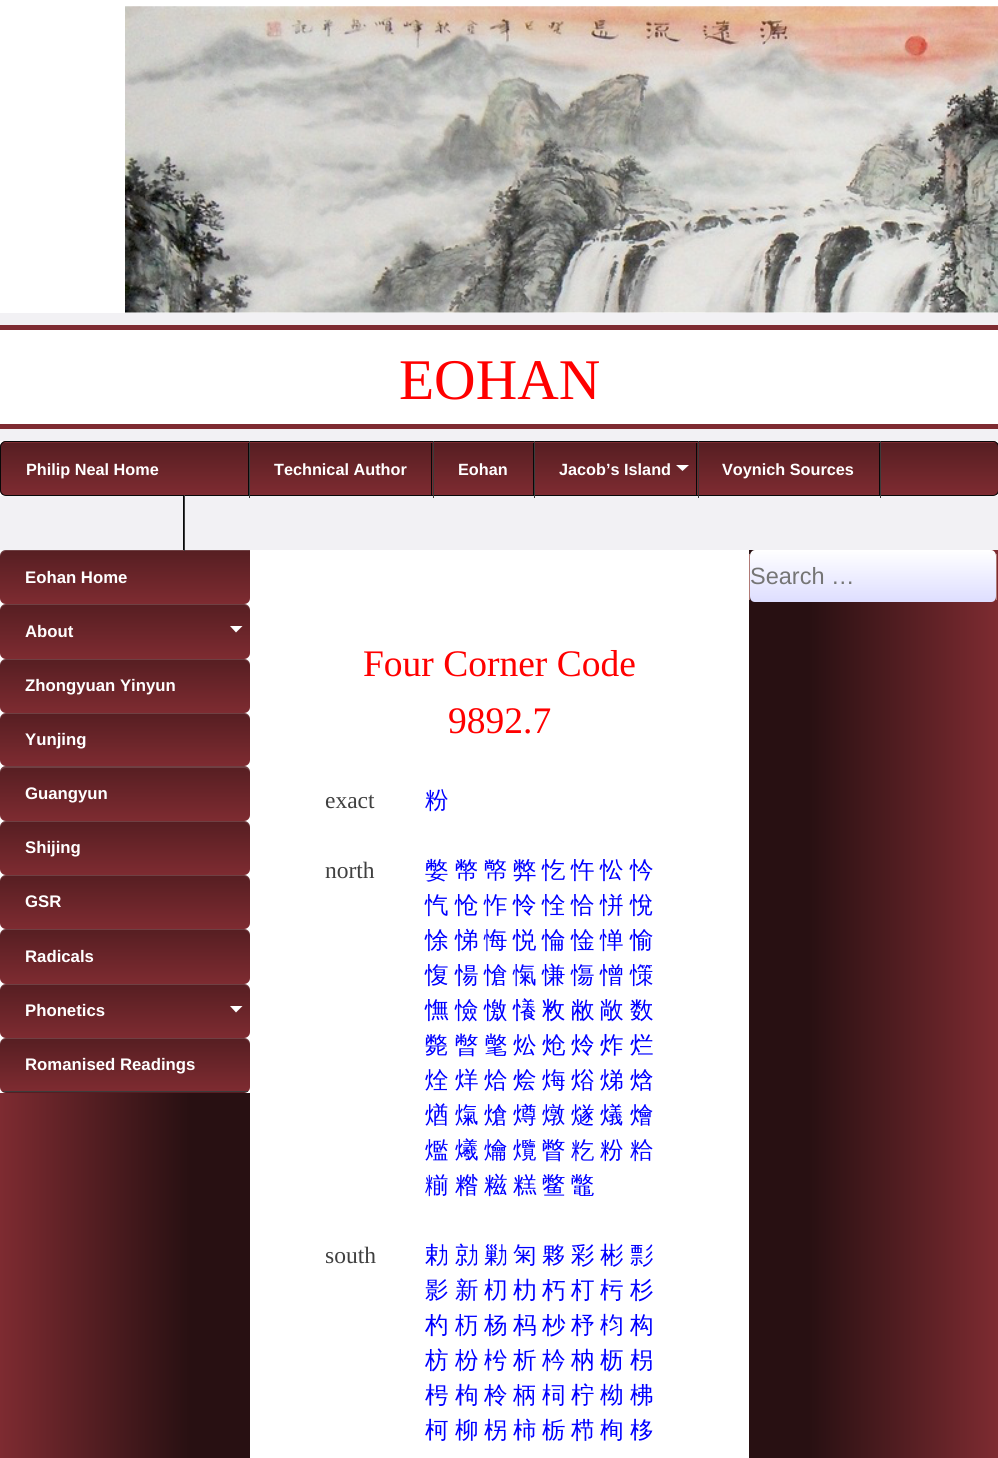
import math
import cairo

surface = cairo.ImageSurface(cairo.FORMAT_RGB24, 998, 1458)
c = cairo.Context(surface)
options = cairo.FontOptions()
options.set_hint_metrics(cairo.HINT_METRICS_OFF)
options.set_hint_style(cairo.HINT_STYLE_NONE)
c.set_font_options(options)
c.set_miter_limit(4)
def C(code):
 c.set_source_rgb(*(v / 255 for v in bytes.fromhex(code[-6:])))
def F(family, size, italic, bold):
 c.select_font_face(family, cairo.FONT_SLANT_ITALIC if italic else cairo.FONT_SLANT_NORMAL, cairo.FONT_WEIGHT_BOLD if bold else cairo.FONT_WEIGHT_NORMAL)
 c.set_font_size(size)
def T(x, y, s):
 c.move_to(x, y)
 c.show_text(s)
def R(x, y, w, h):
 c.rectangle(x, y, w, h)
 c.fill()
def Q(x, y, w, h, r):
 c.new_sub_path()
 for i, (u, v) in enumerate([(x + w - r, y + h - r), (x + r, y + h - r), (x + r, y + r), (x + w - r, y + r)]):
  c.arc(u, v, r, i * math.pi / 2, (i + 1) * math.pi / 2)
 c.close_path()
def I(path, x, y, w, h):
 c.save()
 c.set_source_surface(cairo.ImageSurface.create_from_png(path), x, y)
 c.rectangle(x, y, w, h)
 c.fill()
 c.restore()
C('f2f1f4')
c.paint()
C('ffffff')
R(0,0,998,313)
I('1.png',125,6,873,307)
R(0,330,998,94)
C('7e2b31')
R(0,325,998,5)
R(0,424,998,5)
F('Liberation Serif',57.5,0,0)
C('ff0000')
T(399,399,'EOHAN')
C('ffffff')
R(0,441,998,55)
c.save()
Q(0,441,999,55,6)
c.clip()
gradient = cairo.LinearGradient(499,390,499,443)
gradient.add_color_stop_rgba(0,0.337,0.118,0.133,1)
gradient.add_color_stop_rgba(1,0.494,0.169,0.192,1)
c.set_source(gradient)
R(0,441,998,2)
gradient = cairo.LinearGradient(499,442,499,495)
gradient.add_color_stop_rgba(0,0.337,0.118,0.133,1)
gradient.add_color_stop_rgba(1,0.494,0.169,0.192,1)
c.set_source(gradient)
R(0,443,998,52)
c.restore()
Q(.5,441.5,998,54,5.5)
C('080808')
c.set_line_width(1)
c.stroke()
R(248,443,1,53)
F('Liberation Sans',16.25,0,1)
C('ffffff')
T(26,475,'Philip Neal Home')
C('3c3c3c')
R(249,441,1,57)
C('080808')
R(431,443,1,53)
C('ffffff')
T(274,475,'Technical Author')
C('3c3c3c')
R(433,441,1,57)
C('080808')
R(533,443,1,53)
C('ffffff')
T(458,475,'Eohan')
C('3c3c3c')
R(534,441,1,57)
C('080808')
R(696,443,1,53)
C('ffffff')
T(559,475,'Jacob’s Island')
c.new_path()
c.move_to(676,465)
c.line_to(689,465)
c.line_to(682.5,471)
c.close_path()
c.fill()
C('3c3c3c')
R(698,441,1,57)
C('080808')
R(879,443,1,53)
C('ffffff')
T(722,475,'Voynich Sources')
C('3c3c3c')
R(880,441,1,57)
C('080808')
R(183,496,1,54)
gradient = cairo.LinearGradient(0,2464,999,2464)
gradient.add_color_stop_rgba(0,0.494,0.169,0.192,1)
gradient.add_color_stop_rgba(.19,0.157,0.063,0.071,1)
gradient.add_color_stop_rgba(.81,0.157,0.063,0.071,1)
gradient.add_color_stop_rgba(1,0.494,0.169,0.192,1)
c.set_source(gradient)
R(0,550,998,908)
C('ffffff')
R(0,550,250,543)
gradient = cairo.LinearGradient(125,550,125,604)
gradient.add_color_stop_rgba(0,0.337,0.118,0.133,1)
gradient.add_color_stop_rgba(1,0.494,0.169,0.192,1)
c.set_source(gradient)
c.new_path()
c.move_to(6,550)
c.line_to(250,550)
c.line_to(250,598)
c.curve_to(250,601.5,247.5,604,244,604)
c.line_to(6,604)
c.curve_to(2.5,604,0,601.5,0,598)
c.line_to(0,556)
c.curve_to(0,552.5,2.5,550,6,550)
c.close_path()
c.fill()
c.set_source_rgba(1,1,1,0.15)
c.new_path()
c.move_to(6,551)
c.line_to(250,551)
c.line_to(250,550)
c.line_to(6,550)
c.curve_to(1,550,0,554,0,558)
c.curve_to(0,554,3,551,6,551)
c.close_path()
c.fill()
C('3c3c3c')
R(184,495,1,56)
F('Liberation Sans',16.75,0,1)
C('ffffff')
T(25,583,'Eohan Home')
gradient = cairo.LinearGradient(125,604,125,659)
gradient.add_color_stop_rgba(0,0.337,0.118,0.133,1)
gradient.add_color_stop_rgba(1,0.494,0.169,0.192,1)
c.set_source(gradient)
Q(0,604,250,55,6)
c.fill()
c.set_source_rgba(1,1,1,0.15)
c.new_path()
c.move_to(6,605)
c.line_to(244,605)
c.curve_to(247,605,250,608,250,611)
c.curve_to(250,607,248,604,244,604)
c.line_to(5,604)
c.curve_to(1,605,0,608,0,611)
c.curve_to(0,608,3,605,6,605)
c.close_path()
c.fill()
C('ffffff')
T(25,637,'About')
c.new_path()
c.move_to(230,626)
c.line_to(242.5,626)
c.line_to(236,632.5)
c.close_path()
c.fill()
gradient = cairo.LinearGradient(125,659,125,713)
gradient.add_color_stop_rgba(0,0.337,0.118,0.133,1)
gradient.add_color_stop_rgba(1,0.494,0.169,0.192,1)
c.set_source(gradient)
Q(0,659,250,54,6)
c.fill()
c.set_source_rgba(1,1,1,0.15)
c.new_path()
c.move_to(6,660)
c.line_to(244,660)
c.curve_to(247,660,250,663,250,666)
c.curve_to(250,662,248,659,244,659)
c.line_to(5,659)
c.curve_to(1,660,0,663,0,666)
c.curve_to(0,663,3,660,6,660)
c.close_path()
c.fill()
C('ffffff')
T(25,691,'Zhongyuan Yinyun')
gradient = cairo.LinearGradient(125,713,125,766)
gradient.add_color_stop_rgba(0,0.337,0.118,0.133,1)
gradient.add_color_stop_rgba(1,0.494,0.169,0.192,1)
c.set_source(gradient)
Q(0,713,250,53,6)
c.fill()
c.set_source_rgba(1,1,1,0.15)
c.new_path()
c.move_to(6,714)
c.line_to(244,714)
c.curve_to(247,714,250,717,250,720)
c.curve_to(250,716,248,713,244,713)
c.line_to(5,713)
c.curve_to(1,714,0,717,0,720)
c.curve_to(0,717,3,714,6,714)
c.close_path()
c.fill()
C('ffffff')
T(25,745,'Yunjing')
gradient = cairo.LinearGradient(125,766,125,821)
gradient.add_color_stop_rgba(0,0.337,0.118,0.133,1)
gradient.add_color_stop_rgba(1,0.494,0.169,0.192,1)
c.set_source(gradient)
Q(0,766,250,55,6)
c.fill()
c.set_source_rgba(1,1,1,0.15)
c.new_path()
c.move_to(6,768)
c.line_to(244,768)
c.curve_to(247,768,250,770,250,774)
c.curve_to(250,770,249,766,244,766)
c.line_to(5,766)
c.curve_to(1,767,0,771,0,774)
c.curve_to(0,770,3,768,6,768)
c.close_path()
c.fill()
C('ffffff')
T(25,799,'Guangyun')
gradient = cairo.LinearGradient(125,821,125,875)
gradient.add_color_stop_rgba(0,0.337,0.118,0.133,1)
gradient.add_color_stop_rgba(1,0.494,0.169,0.192,1)
c.set_source(gradient)
Q(0,821,250,54,6)
c.fill()
c.set_source_rgba(1,1,1,0.15)
c.new_path()
c.move_to(6,822)
c.line_to(244,822)
c.curve_to(247,822,250,825,250,829)
c.curve_to(250,825,249,821,244,821)
c.line_to(5,821)
c.curve_to(1,822,0,826,0,829)
c.curve_to(0,825,3,822,6,822)
c.close_path()
c.fill()
C('ffffff')
T(25,853,'Shijing')
gradient = cairo.LinearGradient(125,875,125,929)
gradient.add_color_stop_rgba(0,0.337,0.118,0.133,1)
gradient.add_color_stop_rgba(1,0.494,0.169,0.192,1)
c.set_source(gradient)
Q(0,875,250,54,6)
c.fill()
c.set_source_rgba(1,1,1,0.15)
c.new_path()
c.move_to(6,876)
c.line_to(244,876)
c.curve_to(247,876,250,879,250,882)
c.curve_to(250,878,248,875,244,875)
c.line_to(5,875)
c.curve_to(1,876,0,879,0,882)
c.curve_to(0,879,3,876,6,876)
c.close_path()
c.fill()
C('ffffff')
T(25,907,'GSR')
gradient = cairo.LinearGradient(125,929,125,984)
gradient.add_color_stop_rgba(0,0.337,0.118,0.133,1)
gradient.add_color_stop_rgba(1,0.494,0.169,0.192,1)
c.set_source(gradient)
Q(0,929,250,55,6)
c.fill()
c.set_source_rgba(1,1,1,0.15)
c.new_path()
c.move_to(6,930)
c.line_to(244,930)
c.curve_to(247,930,250,933,250,936)
c.curve_to(250,932,248,929,244,929)
c.line_to(5,929)
c.curve_to(1,930,0,933,0,936)
c.curve_to(0,933,3,930,6,930)
c.close_path()
c.fill()
C('ffffff')
T(25,962,'Radicals')
gradient = cairo.LinearGradient(125,984,125,1038)
gradient.add_color_stop_rgba(0,0.337,0.118,0.133,1)
gradient.add_color_stop_rgba(1,0.494,0.169,0.192,1)
c.set_source(gradient)
Q(0,984,250,54,6)
c.fill()
c.set_source_rgba(1,1,1,0.15)
c.new_path()
c.move_to(6,985)
c.line_to(244,985)
c.curve_to(247,985,250,988,250,991)
c.curve_to(250,987,248,984,244,984)
c.line_to(5,984)
c.curve_to(1,985,0,988,0,991)
c.curve_to(0,988,3,985,6,985)
c.close_path()
c.fill()
C('ffffff')
T(25,1016,'Phonetics')
c.new_path()
c.move_to(230,1006)
c.line_to(242.5,1006)
c.line_to(236,1012.5)
c.close_path()
c.fill()
c.save()
Q(0,1038,250,55,6)
c.clip()
gradient = cairo.LinearGradient(125,1038,125,1091)
gradient.add_color_stop_rgba(0,0.337,0.118,0.133,1)
gradient.add_color_stop_rgba(1,0.494,0.169,0.192,1)
c.set_source(gradient)
c.new_path()
c.move_to(6,1038)
c.line_to(244,1038)
c.curve_to(247.5,1038,250,1040.5,250,1044)
c.line_to(250,1091)
c.line_to(0,1091)
c.line_to(0,1044)
c.curve_to(0,1040.5,2.5,1038,6,1038)
c.close_path()
c.fill()
gradient = cairo.LinearGradient(125,1091,125,1145)
gradient.add_color_stop_rgba(0,0.337,0.118,0.133,1)
gradient.add_color_stop_rgba(1,0.494,0.169,0.192,1)
c.set_source(gradient)
R(0,1091,250,2)
c.restore()
c.set_source_rgba(1,1,1,0.15)
c.new_path()
c.move_to(6,1039)
c.line_to(244,1039)
c.curve_to(247,1039,250,1042,250,1045)
c.line_to(250,1044)
c.curve_to(250,1040,247,1038,244,1038)
c.line_to(6,1038)
c.curve_to(3,1038,0,1040,0,1044)
c.line_to(0,1045)
c.curve_to(0,1042,3,1039,6,1039)
c.close_path()
c.fill()
C('3c3c3c')
R(4,1091,244,1)
C('ffffff')
T(25,1070,'Romanised Readings')
R(250,550,499,908)
F('Liberation Serif',37.5,0,0)
C('ff0000')
T(363,676,'Four Corner Code')
T(448,733,'9892.7')
F('Liberation Serif',23.5,0,0)
C('404040')
T(325,808,'exact')
F('WenQuanYi Zen Hei Medium',23.5,0,0)
C('0000ff')
T(425,808,'粉')
F('Liberation Serif',23.5,0,0)
C('404040')
T(325,878,'north')
F('WenQuanYi Zen Hei Medium',23.5,0,0)
C('0000ff')
T(425,878,'嫳')
T(455,878,'幣')
T(484,878,'幤')
T(513,878,'弊')
T(542,878,'忔')
T(571,878,'忤')
T(600,878,'忪')
T(630,878,'忴')
T(425,913,'忾')
T(455,913,'怆')
T(484,913,'怍')
T(513,913,'怜')
T(542,913,'恮')
T(571,913,'恰')
T(600,913,'恲')
T(630,913,'悅')
T(425,948,'悇')
T(455,948,'悌')
T(484,948,'悔')
T(513,948,'悦')
T(542,948,'惀')
T(571,948,'惍')
T(600,948,'惮')
T(630,948,'愉')
T(425,983,'愎')
T(455,983,'愓')
T(484,983,'愴')
T(513,983,'愾')
T(542,983,'慊')
T(571,983,'慯')
T(600,983,'憎')
T(630,983,'憡')
T(425,1018,'憮')
T(455,1018,'憸')
T(484,1018,'憿')
T(513,1018,'懩')
T(542,1018,'敉')
T(571,1018,'敝')
T(600,1018,'敞')
T(630,1018,'数')
T(425,1053,'斃')
T(455,1053,'暼')
T(484,1053,'氅')
T(513,1053,'炂')
T(542,1053,'炝')
T(571,1053,'炩')
T(600,1053,'炸')
T(630,1053,'烂')
T(425,1088,'烇')
T(455,1088,'烊')
T(484,1088,'烚')
T(513,1088,'烩')
T(542,1088,'烸')
T(571,1088,'焀')
T(600,1088,'焍')
T(630,1088,'焓')
T(425,1123,'煪')
T(455,1123,'熂')
T(484,1123,'熗')
T(513,1123,'燇')
T(542,1123,'燉')
T(571,1123,'燧')
T(600,1123,'燨')
T(630,1123,'燴')
T(425,1158,'爁')
T(455,1158,'爔')
T(484,1158,'爚')
T(513,1158,'爦')
T(542,1158,'瞥')
T(571,1158,'籺')
T(600,1158,'粉')
T(630,1158,'粭')
T(425,1193,'糋')
T(455,1193,'糌')
T(484,1193,'糍')
T(513,1193,'糕')
T(542,1193,'鳖')
T(571,1193,'鼈')
F('Liberation Serif',23.5,0,0)
C('404040')
T(325,1263,'south')
F('WenQuanYi Zen Hei Medium',23.5,0,0)
C('0000ff')
T(425,1263,'勅')
T(455,1263,'勍')
T(484,1263,'勦')
T(513,1263,'匊')
T(542,1263,'夥')
T(571,1263,'彩')
T(600,1263,'彬')
T(630,1263,'彯')
T(425,1298,'影')
T(455,1298,'新')
T(484,1298,'朷')
T(513,1298,'朸')
T(542,1298,'朽')
T(571,1298,'朾')
T(600,1298,'杇')
T(630,1298,'杉')
T(425,1333,'杓')
T(455,1333,'杤')
T(484,1333,'杨')
T(513,1333,'杩')
T(542,1333,'杪')
T(571,1333,'杼')
T(600,1333,'枃')
T(630,1333,'构')
T(425,1368,'枋')
T(455,1368,'枌')
T(484,1368,'枍')
T(513,1368,'析')
T(542,1368,'枔')
T(571,1368,'枘')
T(600,1368,'枥')
T(630,1368,'枴')
T(425,1403,'枵')
T(455,1403,'枸')
T(484,1403,'柃')
T(513,1403,'柄')
T(542,1403,'柌')
T(571,1403,'柠')
T(600,1403,'柪')
T(630,1403,'柫')
T(425,1438,'柯')
T(455,1438,'柳')
T(484,1438,'柺')
T(513,1438,'柿')
T(542,1438,'栃')
T(571,1438,'栉')
T(600,1438,'栒')
T(630,1438,'栘')
gradient = cairo.LinearGradient(873,550,873,603)
gradient.add_color_stop_rgba(0,1,1,1,1)
gradient.add_color_stop_rgba(1,0.867,0.867,1,1)
c.set_source(gradient)
c.new_path()
c.move_to(755,550)
c.line_to(991,550)
c.curve_to(994,550,996,553,996,556)
c.line_to(996,596)
c.curve_to(996,600,994,602,991,602)
c.line_to(755,602)
c.curve_to(752,602,750,600,750,596)
c.line_to(750,556)
c.curve_to(750,553,752,550,755,550)
c.close_path()
c.fill()
C('b07975')
R(996,554,1,46)
R(749,554,1,46)
F('Liberation Sans',23.5,0,0)
C('757575')
T(750,584,'Search …')
surface.write_to_png('o.png')
